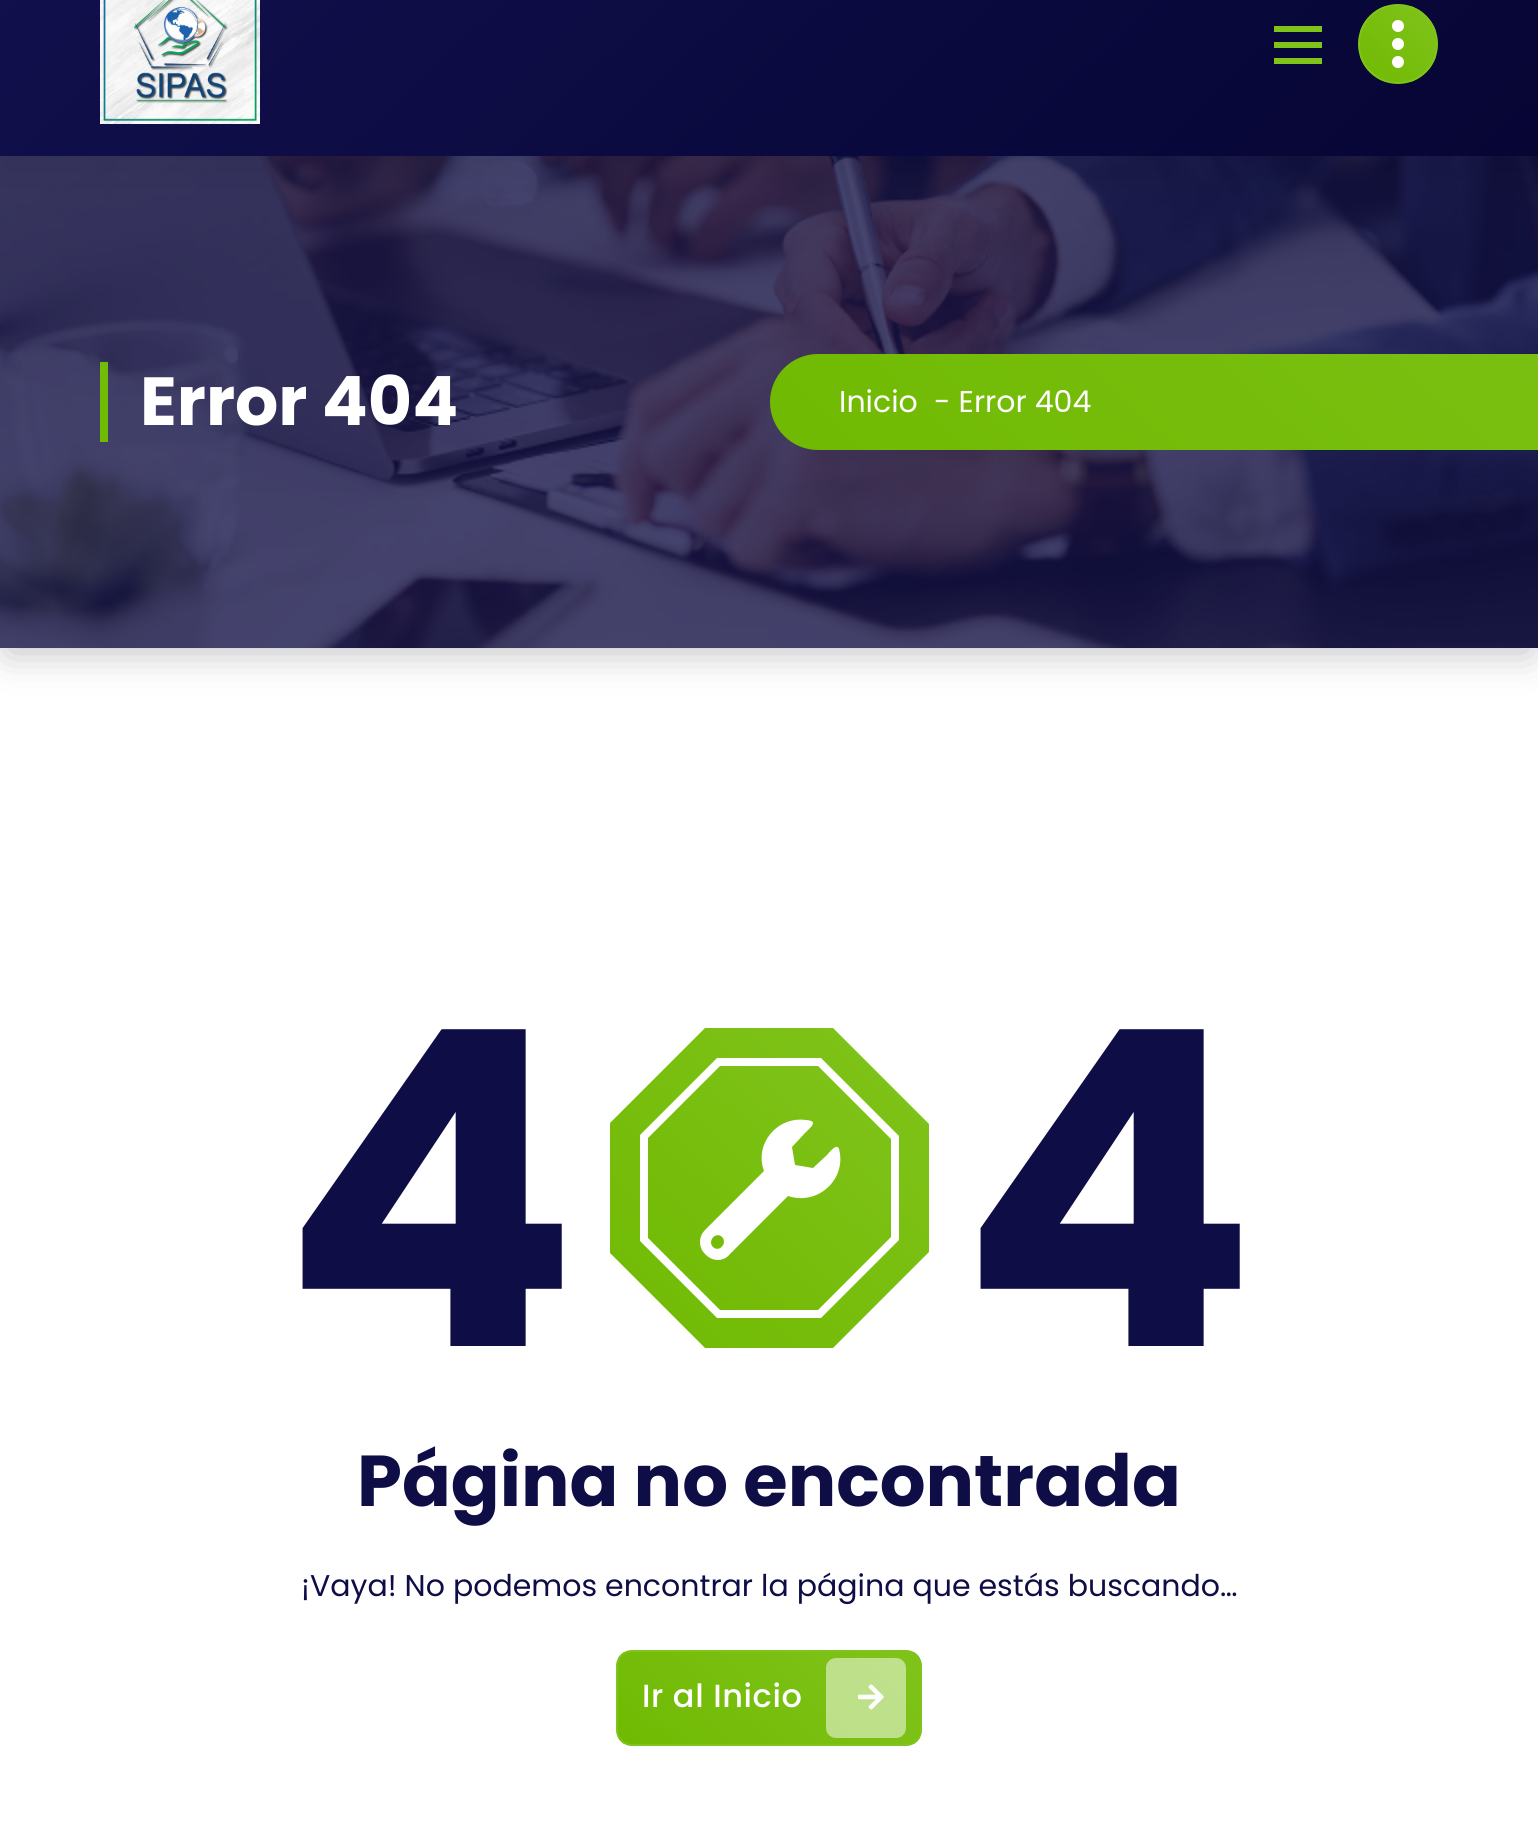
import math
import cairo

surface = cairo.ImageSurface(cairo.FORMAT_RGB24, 1538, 1840)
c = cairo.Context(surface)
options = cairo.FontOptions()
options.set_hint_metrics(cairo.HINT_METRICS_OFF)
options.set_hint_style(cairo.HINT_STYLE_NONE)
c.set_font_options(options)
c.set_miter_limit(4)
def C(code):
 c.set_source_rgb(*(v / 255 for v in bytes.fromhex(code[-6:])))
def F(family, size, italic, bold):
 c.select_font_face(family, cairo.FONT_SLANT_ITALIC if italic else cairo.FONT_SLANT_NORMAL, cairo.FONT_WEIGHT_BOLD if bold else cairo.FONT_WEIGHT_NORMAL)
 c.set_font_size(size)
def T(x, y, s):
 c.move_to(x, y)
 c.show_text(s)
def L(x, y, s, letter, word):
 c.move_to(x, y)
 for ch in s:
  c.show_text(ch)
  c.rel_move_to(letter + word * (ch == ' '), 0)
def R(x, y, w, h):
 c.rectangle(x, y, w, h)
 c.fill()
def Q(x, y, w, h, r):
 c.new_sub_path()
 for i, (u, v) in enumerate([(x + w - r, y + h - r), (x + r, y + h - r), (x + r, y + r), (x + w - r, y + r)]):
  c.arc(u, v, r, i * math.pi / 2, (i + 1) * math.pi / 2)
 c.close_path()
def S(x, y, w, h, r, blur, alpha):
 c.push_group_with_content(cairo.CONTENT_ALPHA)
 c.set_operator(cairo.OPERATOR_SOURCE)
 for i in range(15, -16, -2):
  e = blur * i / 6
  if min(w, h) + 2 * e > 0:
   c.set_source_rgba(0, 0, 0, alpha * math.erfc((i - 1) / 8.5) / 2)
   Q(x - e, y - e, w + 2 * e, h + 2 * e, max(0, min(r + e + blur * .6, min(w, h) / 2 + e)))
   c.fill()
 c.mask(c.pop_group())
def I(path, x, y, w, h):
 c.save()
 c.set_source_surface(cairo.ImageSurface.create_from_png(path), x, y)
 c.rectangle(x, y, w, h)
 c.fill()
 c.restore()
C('ffffff')
c.paint()
C('000000')
S(8,176,1522,476,0,20,.25)
I('2.png',0,156,1538,492)
S(0,-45,1538,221,0,15,.05)
gradient = cairo.LinearGradient(355,-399,1183,487)
gradient.add_color_stop_rgba(0,0.067,0.063,0.302,1)
gradient.add_color_stop_rgba(1,0.024,0.02,0.204,1)
c.set_source(gradient)
R(0,0,1538,156)
I('1.png',100,0,160,124)
C('80c31b')
R(1274,26,48,6)
R(1274,42,48,6)
R(1274,58,48,6)
c.save()
Q(1358,4,80,80,40)
c.clip()
gradient = cairo.LinearGradient(1435,4.7,1361,83)
gradient.add_color_stop_rgba(0,0.502,0.765,0.106,1)
gradient.add_color_stop_rgba(1,0.439,0.729,0.008,1)
c.set_source(gradient)
R(1360,6,76,76)
c.restore()
c.arc(1398,44,39,0,2 * math.pi)
c.stroke()
C('ffffff')
c.arc(1398,44,6,0,2 * math.pi)
c.fill()
c.arc(1398,26,6,0,2 * math.pi)
c.fill()
c.arc(1398,62,6,0,2 * math.pi)
c.fill()
I('3.png',100,362,8,80)
F('Poppins',68,0,1)
T(140,425,'Error 404')
gradient = cairo.LinearGradient(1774,43,1104,761)
gradient.add_color_stop_rgba(0,0.502,0.765,0.106,1)
gradient.add_color_stop_rgba(1,0.439,0.729,0.008,1)
c.set_source(gradient)
c.new_path()
c.move_to(818,354)
c.line_to(1538,354)
c.line_to(1538,450)
c.line_to(818,450)
c.curve_to(791.5,450,770,428.5,770,402)
c.curve_to(770,375.5,791.5,354,818,354)
c.close_path()
c.fill()
F('Poppins',30,0,0)
C('ffffff')
T(839,412,'Inicio')
T(934,412,'- Error 404')
F('Poppins',440,0,1)
C('0e0d46')
T(281,1346,'4')
gradient = cairo.LinearGradient(924,1023,616,1353)
gradient.add_color_stop_rgba(0,0.502,0.765,0.106,1)
gradient.add_color_stop_rgba(1,0.439,0.729,0.008,1)
c.set_source(gradient)
c.new_path()
c.move_to(705,1028)
c.line_to(610,1123)
c.line_to(610,1253)
c.line_to(705,1348)
c.line_to(833,1348)
c.line_to(929,1252)
c.line_to(929,1124)
c.line_to(833,1028)
c.close_path()
c.fill()
C('ffffff')
c.new_path()
c.move_to(717,1058)
c.line_to(640,1135)
c.line_to(640,1241)
c.line_to(717,1318)
c.line_to(821,1318)
c.line_to(899,1240)
c.line_to(899,1136)
c.line_to(821,1058)
c.close_path()
c.fill()
gradient = cairo.LinearGradient(888,1062,652,1314)
gradient.add_color_stop_rgba(0,0.502,0.765,0.106,1)
gradient.add_color_stop_rgba(1,0.439,0.729,0.008,1)
c.set_source(gradient)
c.new_path()
c.move_to(720,1066)
c.line_to(648,1138)
c.line_to(648,1238)
c.line_to(720,1310)
c.line_to(818,1310)
c.line_to(891,1237)
c.line_to(891,1139)
c.line_to(818,1066)
c.close_path()
c.fill()
C('ffffff')
c.new_path()
c.move_to(839,1149)
c.curve_to(847,1179,818,1206,788,1196)
c.line_to(730,1254)
c.curve_to(727,1258,722,1260,718,1260)
c.curve_to(713,1260,709,1258,705,1254)
c.curve_to(702,1251,700,1247,700,1242)
c.curve_to(700,1237,702,1233,705,1230)
c.line_to(764,1171)
c.curve_to(754,1144,777,1116,806,1120)
c.curve_to(819,1121,811,1127,805,1133)
c.line_to(792,1147)
c.line_to(795,1165)
c.line_to(813,1168)
c.line_to(827,1155)
c.curve_to(828,1154,837,1142,839,1149)
c.close_path()
c.move_to(713,1247)
c.curve_to(719,1253,728,1243,722,1237)
c.curve_to(716,1231,707,1241,713,1247)
c.close_path()
c.fill()
C('0e0d46')
T(959,1346,'4')
F('Poppins',72,0,1)
T(357,1506,'Página no encontrada')
F('Poppins',30,0,0)
T(301,1596,'¡Vaya! No podemos encontrar la página que estás buscando…')
c.save()
Q(616,1650,306,96,16)
c.clip()
gradient = cairo.LinearGradient(862,1598,676,1798)
gradient.add_color_stop_rgba(0,0.502,0.765,0.106,1)
gradient.add_color_stop_rgba(1,0.439,0.729,0.008,1)
c.set_source(gradient)
R(618,1652,302,92)
c.restore()
Q(617,1651,304,94,15)
C('80c31b')
c.stroke()
F('Poppins Medium',32,0,0)
C('ffffff')
L(642,1707,'Ir al Inicio',.6,0)
c.set_source_rgba(1,1,1,0.5)
Q(826,1658,80,80,10)
c.fill()
I('4.png',858,1684,26,26)
surface.write_to_png('o.png')
